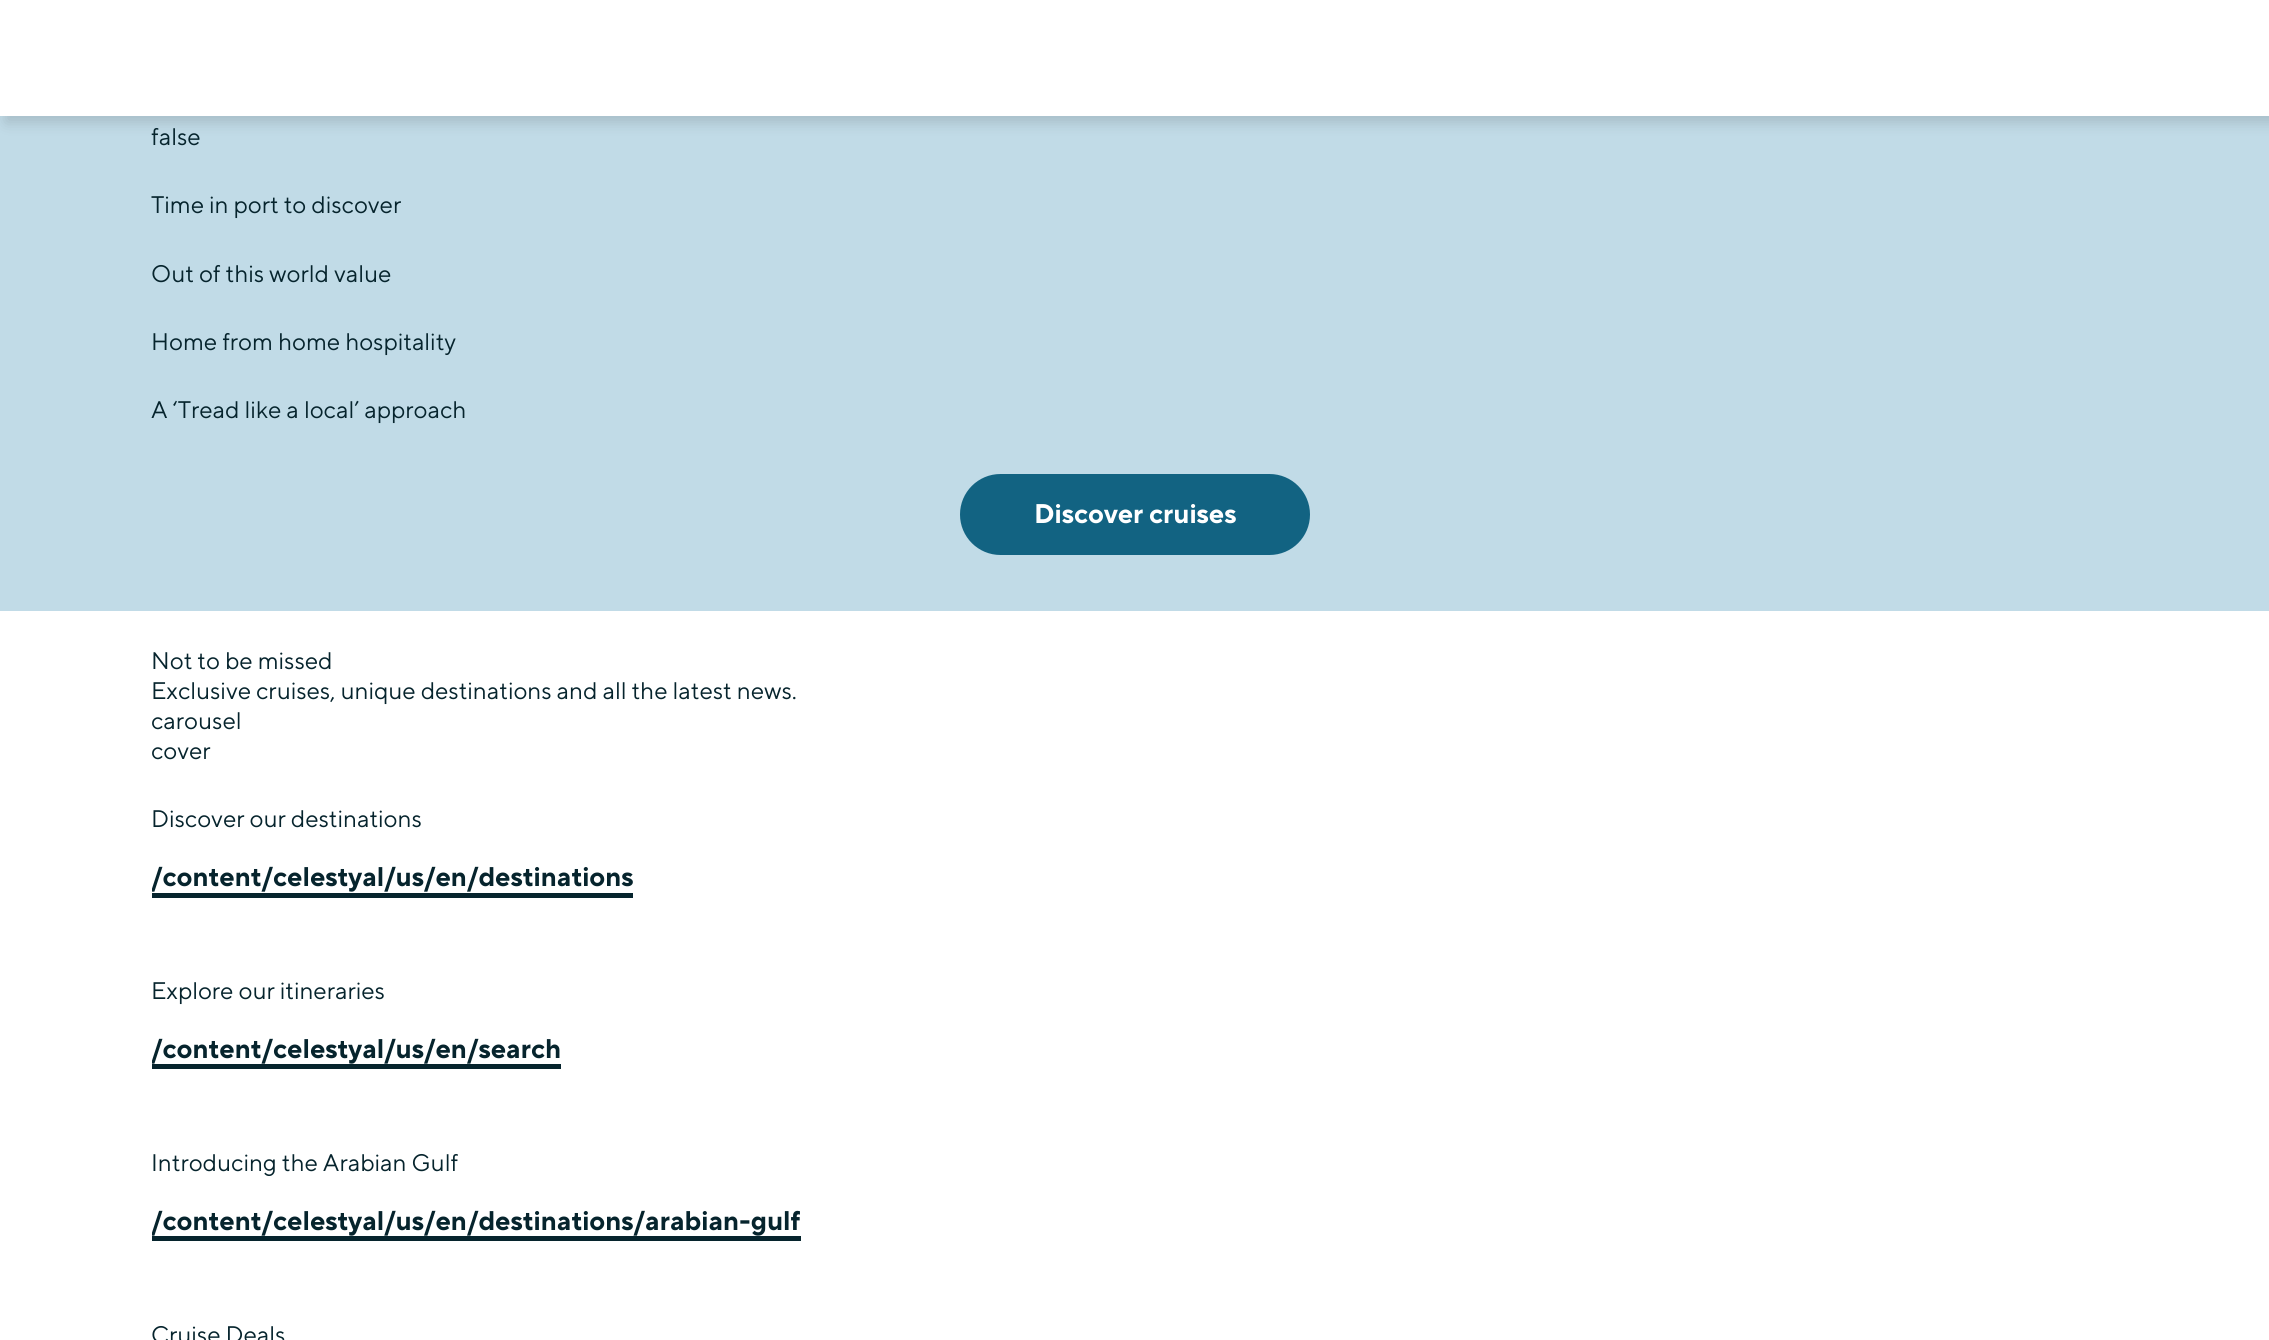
import math
import cairo

surface = cairo.ImageSurface(cairo.FORMAT_RGB24, 2269, 1340)
c = cairo.Context(surface)
options = cairo.FontOptions()
options.set_hint_metrics(cairo.HINT_METRICS_OFF)
options.set_hint_style(cairo.HINT_STYLE_NONE)
c.set_font_options(options)
c.set_miter_limit(4)
def C(code):
 c.set_source_rgb(*(v / 255 for v in bytes.fromhex(code[-6:])))
def F(family, size, italic, bold):
 c.select_font_face(family, cairo.FONT_SLANT_ITALIC if italic else cairo.FONT_SLANT_NORMAL, cairo.FONT_WEIGHT_BOLD if bold else cairo.FONT_WEIGHT_NORMAL)
 c.set_font_size(size)
def T(x, y, s):
 c.move_to(x, y)
 c.show_text(s)
def R(x, y, w, h):
 c.rectangle(x, y, w, h)
 c.fill()
def Q(x, y, w, h, r):
 c.new_sub_path()
 for i, (u, v) in enumerate([(x + w - r, y + h - r), (x + r, y + h - r), (x + r, y + r), (x + w - r, y + r)]):
  c.arc(u, v, r, i * math.pi / 2, (i + 1) * math.pi / 2)
 c.close_path()
def S(x, y, w, h, r, blur, alpha):
 c.push_group_with_content(cairo.CONTENT_ALPHA)
 c.set_operator(cairo.OPERATOR_SOURCE)
 for i in range(15, -16, -2):
  e = blur * i / 6
  if min(w, h) + 2 * e > 0:
   c.set_source_rgba(0, 0, 0, alpha * math.erfc((i - 1) / 8.5) / 2)
   Q(x - e, y - e, w + 2 * e, h + 2 * e, max(0, min(r + e + blur * .6, min(w, h) / 2 + e)))
   c.fill()
 c.mask(c.pop_group())
C('ffffff')
c.paint()
C('c1dbe7')
R(0,116,2269,495)
C('000000')
S(6,6,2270,116,0,7.5,.15)
C('ffffff')
R(0,0,2269,116)
F('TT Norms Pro',24,0,0)
C('06242d')
T(151,145,'false')
T(151,213,'Time in port to discover')
T(151,282,'Out of this world value')
T(151,350,'Home from home hospitality')
T(151,418,'A ‘Tread like a local’ approach')
C('126382')
Q(961,475,348,79,39.5)
c.fill_preserve()
c.stroke()
F('TT Norms Pro',27,0,1)
C('ffffff')
T(1034,523,'Discover cruises')
F('TT Norms Pro',24,0,0)
C('06242d')
T(151,669,'Not to be missed')
T(151,699,'Exclusive cruises, unique destinations and all the latest news.')
T(151,729,'carousel')
T(151,759,'cover')
T(151,827,'Discover our destinations')
c.save()
c.rectangle(152,860,481,48)
c.clip()
F('TT Norms Pro',27,0,1)
T(151,886,'/content/celestyal/us/en/destinations')
c.restore()
R(152,893,481,5)
T(151,999,'Explore our itineraries')
c.save()
c.rectangle(152,1031,409,48)
c.clip()
F('TT Norms Pro',27,0,1)
T(151,1058,'/content/celestyal/us/en/search')
c.restore()
R(152,1064,409,5)
T(151,1171,'Introducing the Arabian Gulf')
c.save()
c.rectangle(152,1203,649,48)
c.clip()
F('TT Norms Pro',27,0,1)
T(151,1230,'/content/celestyal/us/en/destinations/arabian-gulf')
c.restore()
R(152,1236,649,5)
T(151,1343,'Cruise Deals')
surface.write_to_png('o.png')
